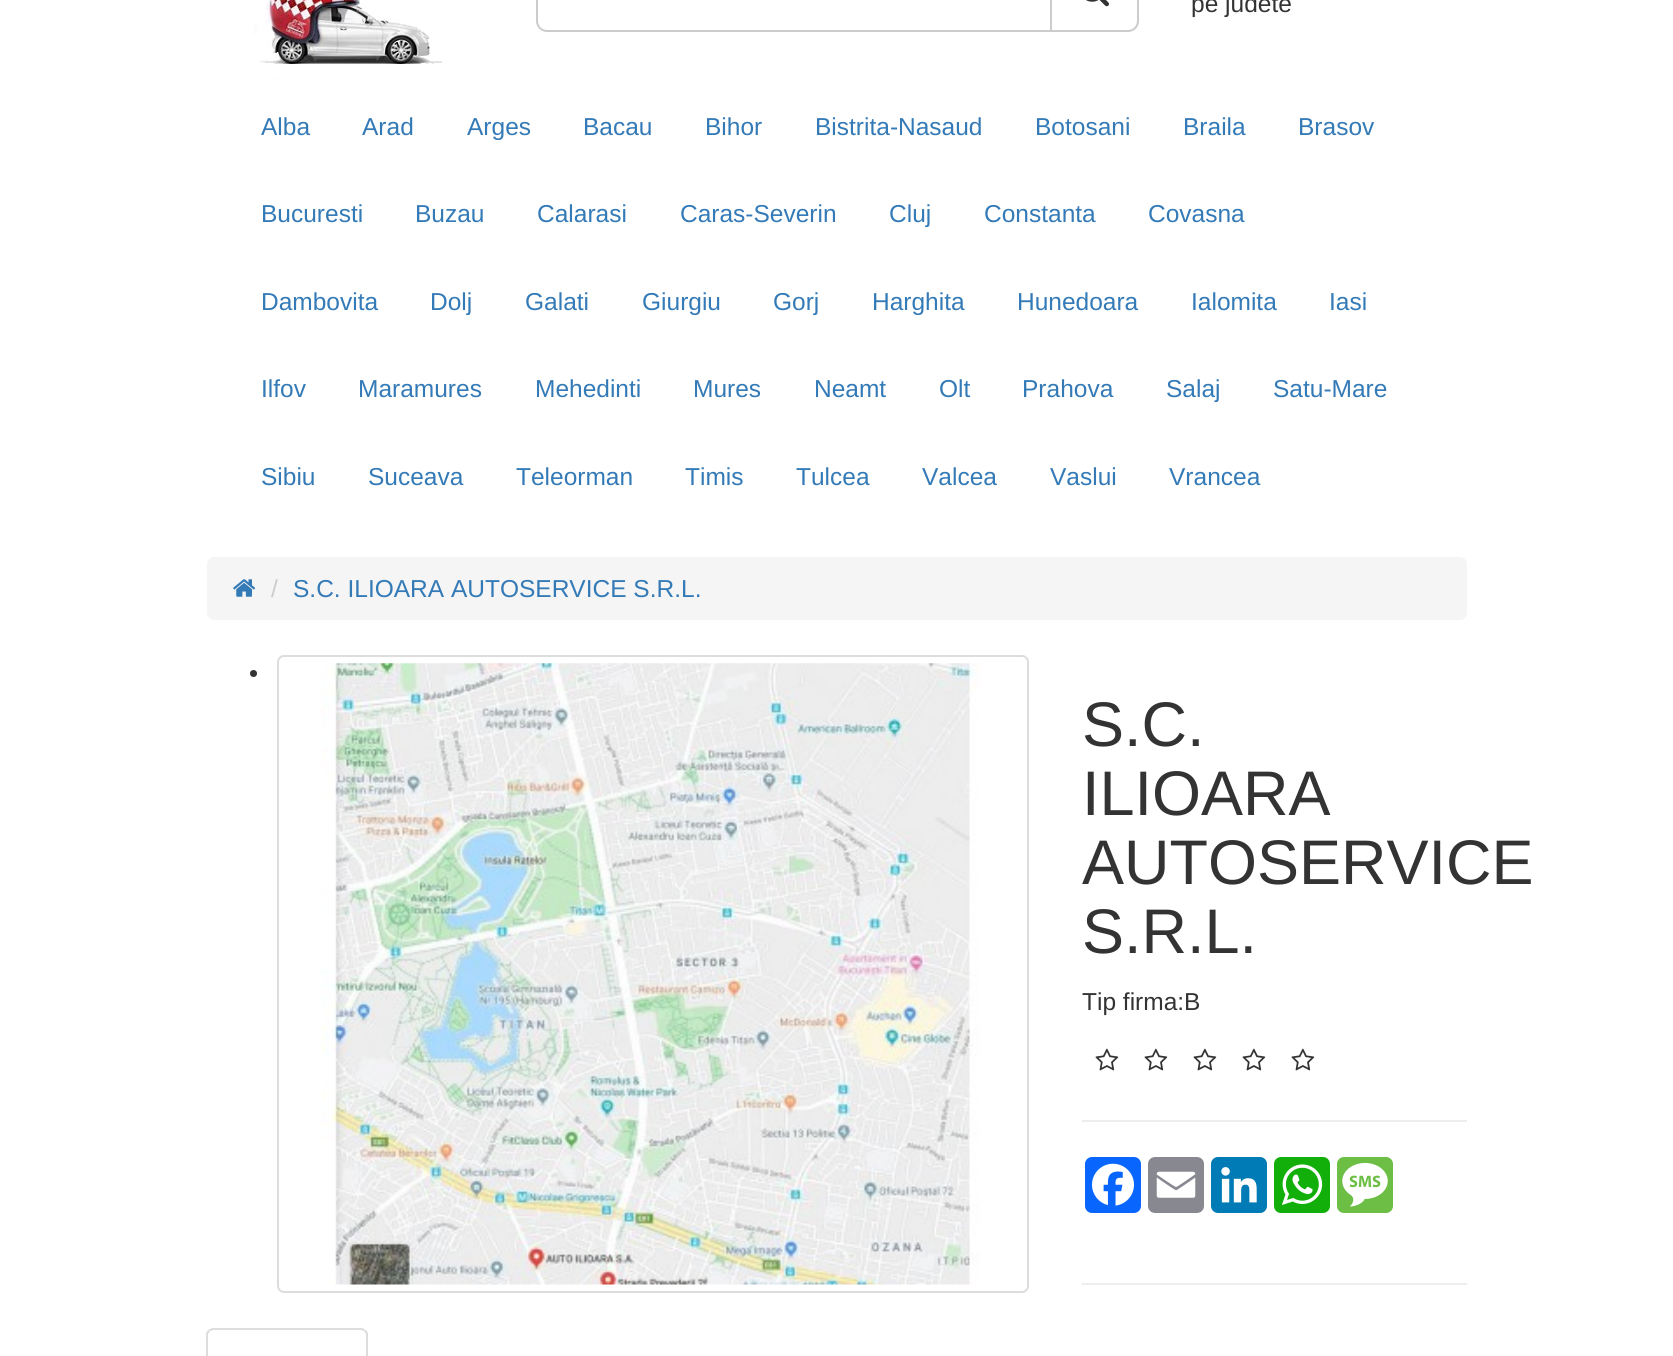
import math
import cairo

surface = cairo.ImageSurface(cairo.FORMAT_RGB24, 1673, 1356)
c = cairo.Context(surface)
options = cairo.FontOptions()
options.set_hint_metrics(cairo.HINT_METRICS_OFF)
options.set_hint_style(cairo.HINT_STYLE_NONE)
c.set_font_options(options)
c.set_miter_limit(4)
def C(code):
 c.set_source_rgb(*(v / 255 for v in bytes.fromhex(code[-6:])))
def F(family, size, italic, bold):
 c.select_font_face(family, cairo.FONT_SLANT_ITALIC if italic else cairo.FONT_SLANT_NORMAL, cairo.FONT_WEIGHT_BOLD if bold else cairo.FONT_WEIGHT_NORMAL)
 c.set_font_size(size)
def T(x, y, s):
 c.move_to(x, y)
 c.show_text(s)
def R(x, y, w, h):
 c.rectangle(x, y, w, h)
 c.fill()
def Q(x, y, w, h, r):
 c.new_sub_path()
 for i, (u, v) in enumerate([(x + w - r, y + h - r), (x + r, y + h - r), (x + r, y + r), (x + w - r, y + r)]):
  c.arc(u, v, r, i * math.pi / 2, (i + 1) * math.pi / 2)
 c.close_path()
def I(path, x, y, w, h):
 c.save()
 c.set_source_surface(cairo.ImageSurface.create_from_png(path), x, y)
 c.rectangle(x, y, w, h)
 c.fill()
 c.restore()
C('ffffff')
c.paint()
I('1.png',252,0,190,79)
c.new_path()
c.move_to(547,-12)
c.line_to(1051,-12)
c.line_to(1051,31)
c.line_to(547,31)
c.curve_to(541.5,31,537,26.5,537,21)
c.line_to(537,-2)
c.curve_to(537,-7.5,541.5,-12,547,-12)
c.close_path()
C('cccccc')
c.stroke()
C('ffffff')
c.new_path()
c.move_to(1051,-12)
c.line_to(1128,-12)
c.curve_to(1133.5,-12,1138,-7.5,1138,-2)
c.line_to(1138,21)
c.curve_to(1138,26.5,1133.5,31,1128,31)
c.line_to(1051,31)
c.close_path()
c.fill_preserve()
C('cccccc')
c.stroke()
I('2.png',1086,0,23,7)
F('Liberation Sans',24.5,0,0)
C('333333')
T(1191,12,'pe judete')
C('337ab7')
T(261,135,'Alba')
T(362,135,'Arad')
T(467,135,'Arges')
T(583,135,'Bacau')
T(705,135,'Bihor')
T(815,135,'Bistrita-Nasaud')
T(1035,135,'Botosani')
T(1183,135,'Braila')
T(1298,135,'Brasov')
T(261,222,'Bucuresti')
T(415,222,'Buzau')
T(537,222,'Calarasi')
T(680,222,'Caras-Severin')
T(889,222,'Cluj')
T(984,222,'Constanta')
T(1148,222,'Covasna')
T(261,310,'Dambovita')
T(430,310,'Dolj')
T(525,310,'Galati')
T(642,310,'Giurgiu')
T(773,310,'Gorj')
T(872,310,'Harghita')
T(1017,310,'Hunedoara')
T(1191,310,'Ialomita')
T(1329,310,'Iasi')
T(261,397,'Ilfov')
T(358,397,'Maramures')
T(535,397,'Mehedinti')
T(693,397,'Mures')
T(814,397,'Neamt')
T(939,397,'Olt')
T(1022,397,'Prahova')
T(1166,397,'Salaj')
T(1273,397,'Satu-Mare')
T(261,485,'Sibiu')
T(368,485,'Suceava')
T(516,485,'Teleorman')
T(685,485,'Timis')
T(796,485,'Tulcea')
T(922,485,'Valcea')
T(1050,485,'Vaslui')
T(1169,485,'Vrancea')
C('f5f5f5')
Q(207,557,1260,63,7)
c.fill()
I('3.png',233,579,23,18)
C('cccccc')
T(271,597,'/')
C('337ab7')
T(293,597,'S.C. ILIOARA AUTOSERVICE S.R.L.')
C('333333')
c.new_path()
c.arc(253.5,673.5,3.5,0,2 * math.pi)
c.fill()
Q(278,656,750,636,6)
C('dddddd')
c.stroke()
I('4.png',321,663,659,622)
c.new_path()
c.move_to(214,1330)
c.curve_to(212,1330,211,1331,210,1331)
c.line_to(208,1330)
c.line_to(212,1328)
c.line_to(362,1328)
c.line_to(366,1330)
c.line_to(364,1331)
c.curve_to(363,1331,362,1330,360,1330)
c.close_path()
c.fill()
c.new_path()
c.move_to(366,1330)
c.line_to(368,1333)
c.line_to(368,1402)
c.line_to(366,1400)
c.line_to(366,1334)
c.line_to(364,1331)
c.close_path()
c.fill()
c.new_path()
c.move_to(206,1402)
c.line_to(206,1333)
c.line_to(208,1330)
c.line_to(210,1331)
c.line_to(208,1334)
c.line_to(208,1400)
c.close_path()
c.fill()
F('Liberation Sans',63,0,0)
C('333333')
T(1082,746,'S.C.')
T(1082,815,'ILIOARA')
T(1082,884,'AUTOSERVICE')
T(1082,953,'S.R.L.')
F('Liberation Sans',24.5,0,0)
T(1082,1010,'Tip firma:B')
I('5.png',1095,1048,24,23)
I('5.png',1144,1048,24,23)
I('5.png',1193,1048,24,23)
I('5.png',1242,1048,24,23)
I('5.png',1291,1048,24,23)
C('eeeeee')
R(1082,1120,385,2)
C('0866ff')
Q(1085,1157,56,56,7)
c.fill()
I('6.png',1092,1163,42,43)
C('888990')
Q(1148,1157,56,56,7)
c.fill()
I('7.png',1156,1171,40,27)
C('007bb5')
Q(1211,1157,56,56,7)
c.fill()
I('8.png',1221,1167,36,36)
C('12af0a')
Q(1274,1157,56,56,7)
c.fill()
I('9.png',1282,1164,41,41)
C('6cbe45')
Q(1337,1157,56,56,7)
c.fill()
I('10.png',1342,1162,46,45)
C('eeeeee')
R(1082,1283,385,2)
surface.write_to_png('o.png')
